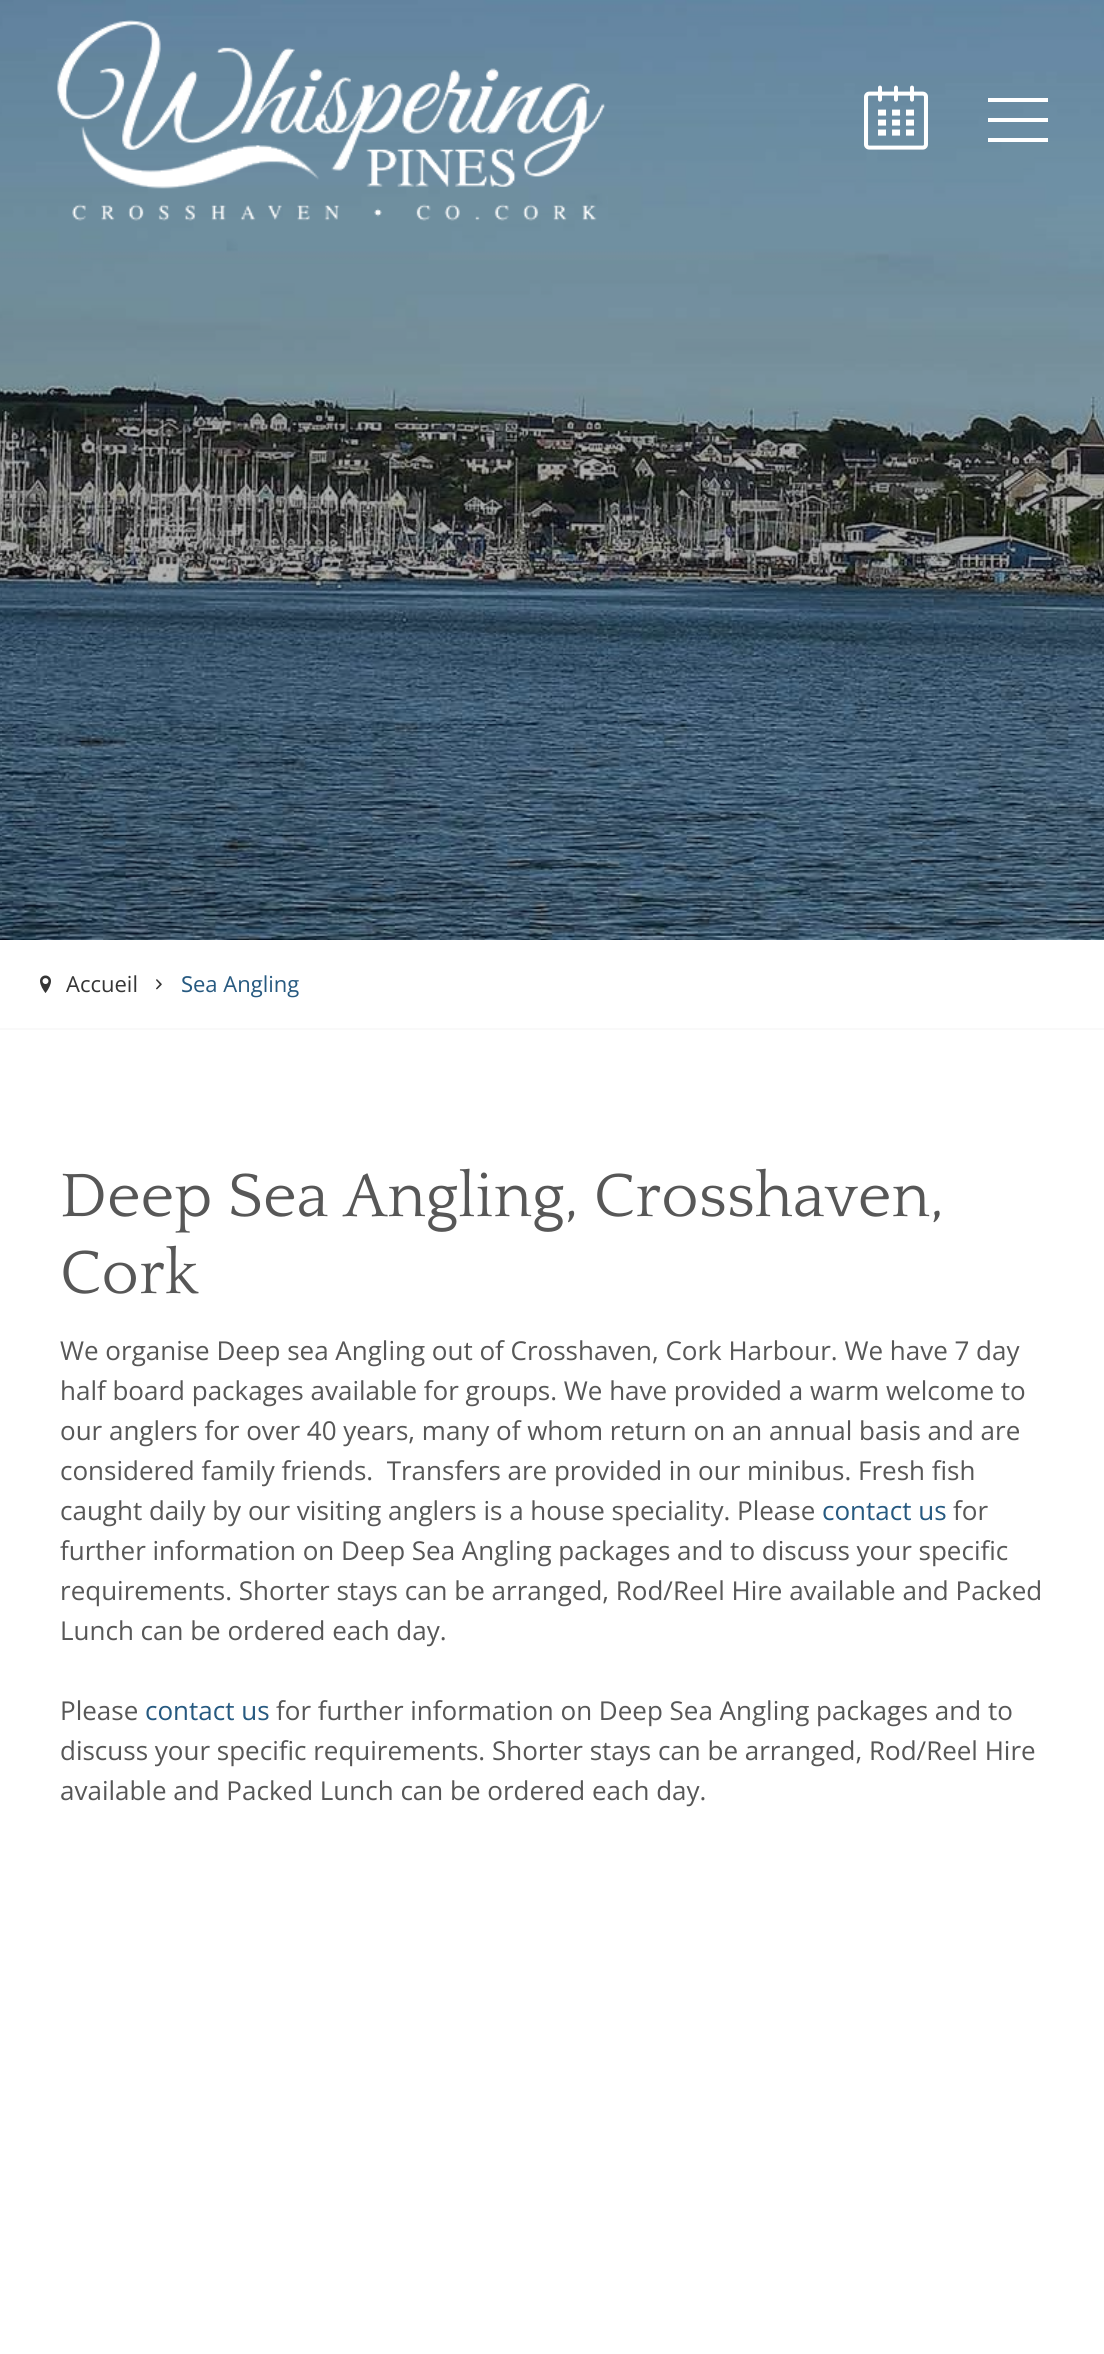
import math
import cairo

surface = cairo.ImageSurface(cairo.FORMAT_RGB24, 1104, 2354)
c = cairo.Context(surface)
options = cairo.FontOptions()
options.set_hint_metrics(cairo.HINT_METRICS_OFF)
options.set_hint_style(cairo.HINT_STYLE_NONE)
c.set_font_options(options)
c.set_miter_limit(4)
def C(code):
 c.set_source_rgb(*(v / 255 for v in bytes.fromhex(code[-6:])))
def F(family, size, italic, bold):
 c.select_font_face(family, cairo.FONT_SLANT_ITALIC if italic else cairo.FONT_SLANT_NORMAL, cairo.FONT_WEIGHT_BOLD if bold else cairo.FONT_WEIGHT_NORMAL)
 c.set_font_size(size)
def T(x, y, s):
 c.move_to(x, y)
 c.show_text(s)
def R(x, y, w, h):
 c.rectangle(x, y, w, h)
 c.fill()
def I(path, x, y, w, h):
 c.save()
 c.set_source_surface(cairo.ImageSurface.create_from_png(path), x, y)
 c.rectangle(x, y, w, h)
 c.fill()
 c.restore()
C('ffffff')
c.paint()
I('1.png',0,0,1104,940)
I('2.png',57,20,548,201)
I('3.png',864,85,64,65)
C('ffffff')
R(988,118,60,4)
R(988,98,60,4)
R(988,138,60,4)
C('f9f9f9')
R(0,1028,1104,2)
I('4.png',40,975,11,18)
F('Open Sans',22,0,0)
C('353535')
T(66,992,'Accueil')
I('5.png',156,979,6,11)
F('Noto Sans',22,0,0)
C('265980')
T(181,992,'S')
F('Open Sans',22,0,0)
T(193,992,'ea Angling')
F('Quattrocento',64,0,0)
C('575757')
T(60,1216,'Deep Sea Angling, Crosshaven,')
T(60,1293,'Cork')
F('Open Sans',26,0,0)
T(60,1360,'We organise Deep sea Angling out of Crosshaven, Cork Harbour. We have 7 day')
T(60,1400,'half board packages available for groups. We have provided a warm welcome to')
T(60,1440,'our anglers for over 40 years, many of whom return on an annual basis and are')
T(60,1480,'considered family friends.  Transfers are provided in our minibus. Fresh fish')
T(60,1520,'caught daily by our visiting anglers is a house speciality. Please')
C('265980')
T(822,1520,'contact us')
C('575757')
T(953,1520,'for')
T(60,1560,'further information on Deep Sea Angling packages and to discuss your specific')
T(60,1600,'requirements. Shorter stays can be arranged, Rod/Reel Hire available and Packed')
T(60,1640,'Lunch can be ordered each day.')
T(60,1720,'Please')
C('265980')
T(145,1720,'contact us')
C('575757')
T(276,1720,'for further information on Deep Sea Angling packages and to')
T(60,1760,'discuss your specific requirements. Shorter stays can be arranged, Rod/Reel Hire')
T(60,1800,'available and Packed Lunch can be ordered each day.')
surface.write_to_png('o.png')
